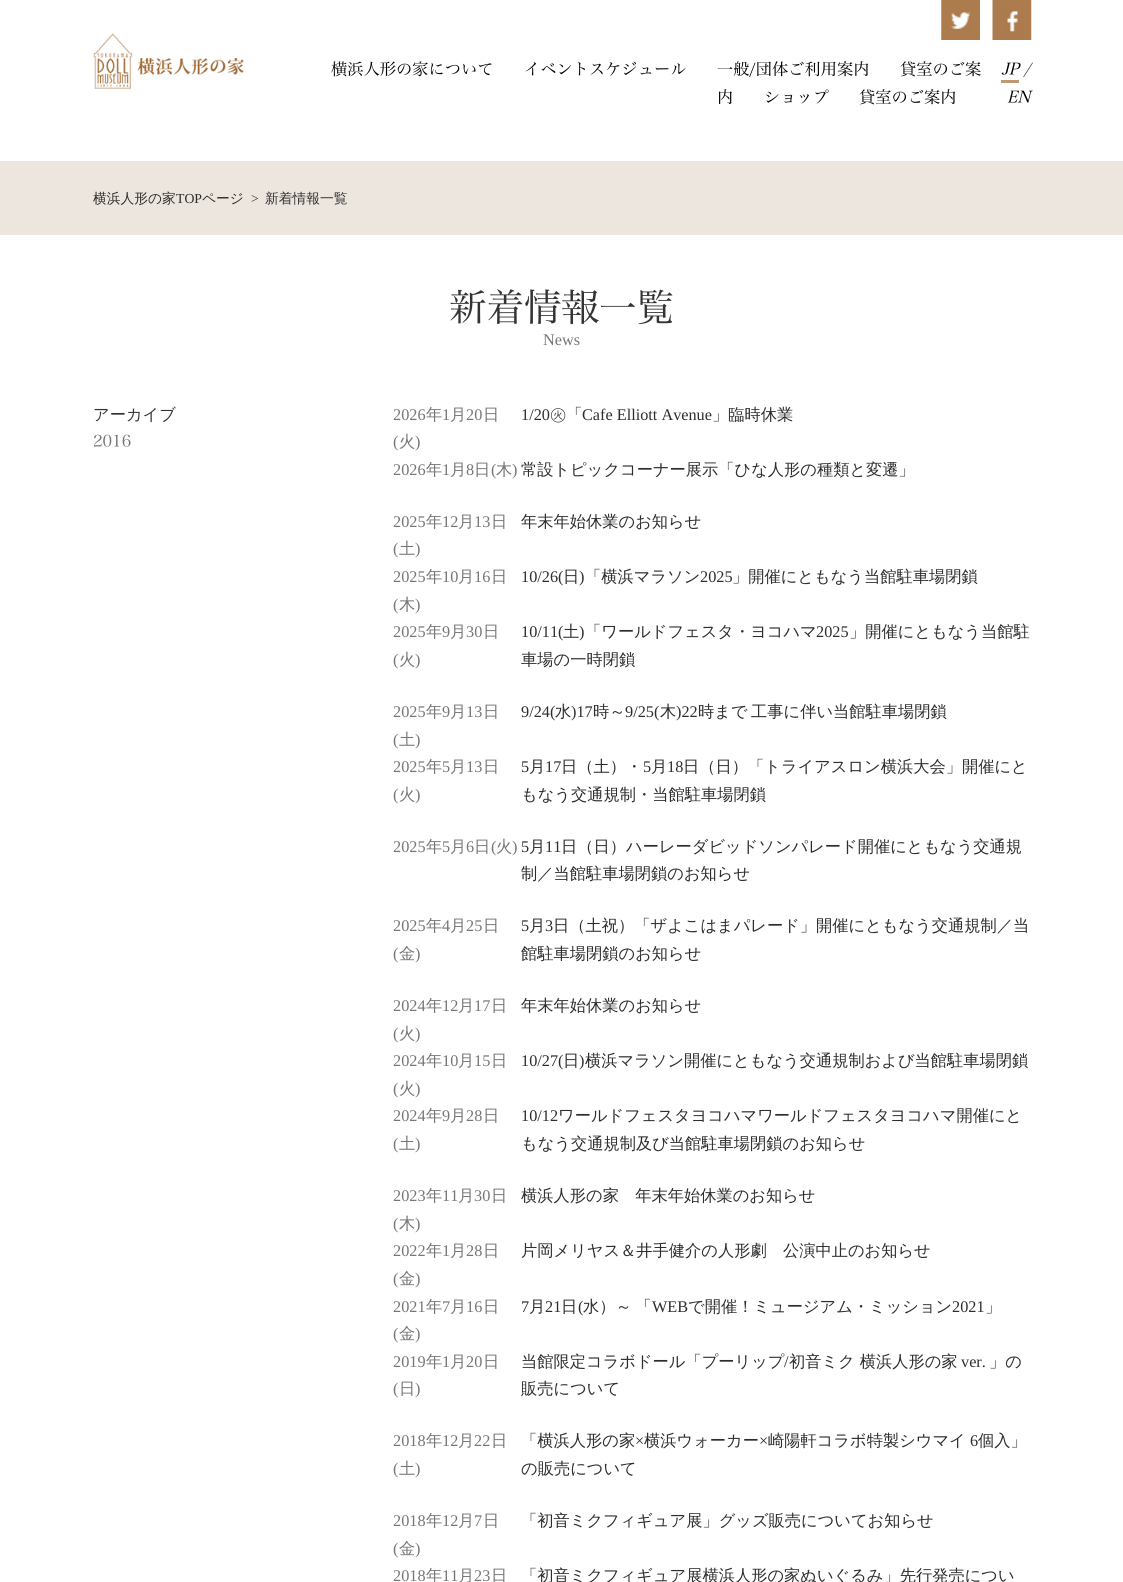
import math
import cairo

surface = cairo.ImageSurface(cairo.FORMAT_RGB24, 1123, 1582)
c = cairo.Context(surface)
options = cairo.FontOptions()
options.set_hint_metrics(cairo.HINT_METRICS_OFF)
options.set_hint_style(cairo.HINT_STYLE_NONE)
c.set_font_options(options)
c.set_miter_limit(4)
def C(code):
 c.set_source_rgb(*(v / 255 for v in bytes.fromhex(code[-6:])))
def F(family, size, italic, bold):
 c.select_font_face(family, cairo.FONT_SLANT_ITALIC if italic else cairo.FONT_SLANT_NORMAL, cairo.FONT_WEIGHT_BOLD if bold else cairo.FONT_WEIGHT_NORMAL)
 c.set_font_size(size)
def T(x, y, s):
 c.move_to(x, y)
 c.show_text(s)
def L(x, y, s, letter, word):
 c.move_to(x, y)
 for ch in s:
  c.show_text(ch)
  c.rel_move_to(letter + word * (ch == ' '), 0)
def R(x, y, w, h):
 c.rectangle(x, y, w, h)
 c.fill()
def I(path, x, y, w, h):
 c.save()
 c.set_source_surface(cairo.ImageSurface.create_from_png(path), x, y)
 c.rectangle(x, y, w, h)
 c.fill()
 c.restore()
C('ffffff')
c.paint()
I('1.png',941,0,39,40)
I('2.png',992,0,40,40)
I('3.png',93,33,151,56)
F('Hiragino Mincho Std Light',16.25,0,0)
C('000000')
T(331,75,'横浜人形の家について')
T(524,75,'イベントスケジュール')
T(717,75,'一般/団体ご利用案内')
T(900,75,'貸室のご案')
T(717,103,'内')
T(764,103,'ショップ')
T(859,103,'貸室のご案内')
F('Hiragino Mincho Std Light',16.25,1,0)
T(1001,75,'JP')
C('c09874')
R(1001,80,18,3)
C('333333')
T(1024,75,'/')
C('000000')
T(1007,103,'EN')
C('ede6df')
R(0,161,1123,74)
F('WenQuanYi Zen Hei Medium',13.75,0,0)
C('2d2d2d')
T(93,203,'横浜人形の家')
F('Liberation Serif',13.75,0,0)
T(176,203,'TOP')
F('WenQuanYi Zen Hei Medium',13.75,0,0)
T(202,203,'ページ')
F('Liberation Serif',13.75,0,0)
C('333333')
T(251,203,'>')
F('WenQuanYi Zen Hei Medium',13.75,0,0)
T(265,203,'新着情報一覧')
F('Hiragino Mincho Std Light',37.5,0,0)
T(449,321,'新着情報一覧')
F('Liberation Serif',16.25,0,0)
C('767676')
T(543,345,'News')
F('WenQuanYi Zen Hei Medium',16.25,0,0)
C('333333')
T(93,420,'アーカイブ')
F('Hiragino Mincho Std Light',16.25,0,0)
C('767676')
T(93,447,'2016')
F('Liberation Serif',16.25,0,0)
T(393,420,'2026')
F('WenQuanYi Zen Hei Medium',16.25,0,0)
T(426,420,'年')
F('Liberation Serif',16.25,0,0)
T(442,420,'1')
F('WenQuanYi Zen Hei Medium',16.25,0,0)
T(450,420,'月')
F('Liberation Serif',16.25,0,0)
T(466,420,'20')
F('WenQuanYi Zen Hei Medium',16.25,0,0)
T(483,420,'日')
F('Liberation Serif',16.25,0,0)
T(393,447,'(')
F('WenQuanYi Zen Hei Medium',16.25,0,0)
T(399,447,'火')
F('Liberation Serif',16.25,0,0)
T(415,447,')')
C('2d2d2d')
T(521,420,'1/20')
F('WenQuanYi Zen Hei Medium',16.25,0,0)
T(550,420,'㊋「')
F('Liberation Serif',16.25,0,0)
T(582,420,'Cafe Elliott Avenue')
F('WenQuanYi Zen Hei Medium',16.25,0,0)
T(712,420,'」臨時休業')
F('Liberation Serif',16.25,0,0)
C('767676')
T(393,475,'2026')
F('WenQuanYi Zen Hei Medium',16.25,0,0)
T(426,475,'年')
F('Liberation Serif',16.25,0,0)
T(442,475,'1')
F('WenQuanYi Zen Hei Medium',16.25,0,0)
T(450,475,'月')
F('Liberation Serif',16.25,0,0)
T(466,475,'8')
F('WenQuanYi Zen Hei Medium',16.25,0,0)
T(474,475,'日')
F('Liberation Serif',16.25,0,0)
T(491,475,'(')
F('WenQuanYi Zen Hei Medium',16.25,0,0)
T(496,475,'木')
F('Liberation Serif',16.25,0,0)
T(512,475,')')
F('WenQuanYi Zen Hei Medium',16.25,0,0)
C('2d2d2d')
T(521,475,'常設トピックコーナー展示「ひな人形の種類と変遷」')
F('Liberation Serif',16.25,0,0)
C('767676')
T(393,527,'2025')
F('WenQuanYi Zen Hei Medium',16.25,0,0)
T(426,527,'年')
F('Liberation Serif',16.25,0,0)
T(442,527,'12')
F('WenQuanYi Zen Hei Medium',16.25,0,0)
T(458,527,'月')
F('Liberation Serif',16.25,0,0)
T(474,527,'13')
F('WenQuanYi Zen Hei Medium',16.25,0,0)
T(491,527,'日')
F('Liberation Serif',16.25,0,0)
T(393,554,'(')
F('WenQuanYi Zen Hei Medium',16.25,0,0)
T(399,554,'土')
F('Liberation Serif',16.25,0,0)
T(415,554,')')
F('WenQuanYi Zen Hei Medium',16.25,0,0)
C('2d2d2d')
T(521,527,'年末年始休業のお知らせ')
F('Liberation Serif',16.25,0,0)
C('767676')
T(393,582,'2025')
F('WenQuanYi Zen Hei Medium',16.25,0,0)
T(426,582,'年')
F('Liberation Serif',16.25,0,0)
T(442,582,'10')
F('WenQuanYi Zen Hei Medium',16.25,0,0)
T(458,582,'月')
F('Liberation Serif',16.25,0,0)
T(474,582,'16')
F('WenQuanYi Zen Hei Medium',16.25,0,0)
T(491,582,'日')
F('Liberation Serif',16.25,0,0)
T(393,610,'(')
F('WenQuanYi Zen Hei Medium',16.25,0,0)
T(399,610,'木')
F('Liberation Serif',16.25,0,0)
T(415,610,')')
C('2d2d2d')
T(521,582,'10/26(')
F('WenQuanYi Zen Hei Medium',16.25,0,0)
T(563,582,'日')
F('Liberation Serif',16.25,0,0)
T(579,582,')')
F('WenQuanYi Zen Hei Medium',16.25,0,0)
T(585,582,'「横浜マラソン')
F('Liberation Serif',16.25,0,0)
T(700,582,'2025')
F('WenQuanYi Zen Hei Medium',16.25,0,0)
T(732,582,'」開催にともなう当館駐車場閉鎖')
F('Liberation Serif',16.25,0,0)
C('767676')
T(393,637,'2025')
F('WenQuanYi Zen Hei Medium',16.25,0,0)
T(426,637,'年')
F('Liberation Serif',16.25,0,0)
T(442,637,'9')
F('WenQuanYi Zen Hei Medium',16.25,0,0)
T(450,637,'月')
F('Liberation Serif',16.25,0,0)
T(466,637,'30')
F('WenQuanYi Zen Hei Medium',16.25,0,0)
T(483,637,'日')
F('Liberation Serif',16.25,0,0)
T(393,665,'(')
F('WenQuanYi Zen Hei Medium',16.25,0,0)
T(399,665,'火')
F('Liberation Serif',16.25,0,0)
T(415,665,')')
C('2d2d2d')
T(521,637,'10/11(')
F('WenQuanYi Zen Hei Medium',16.25,0,0)
T(563,637,'土')
F('Liberation Serif',16.25,0,0)
T(579,637,')')
F('WenQuanYi Zen Hei Medium',16.25,0,0)
T(585,637,'「ワールドフェスタ・ヨコハマ')
F('Liberation Serif',16.25,0,0)
T(816,637,'2025')
F('WenQuanYi Zen Hei Medium',16.25,0,0)
T(849,637,'」開催にともなう当館駐')
T(521,665,'車場の一時閉鎖')
F('Liberation Serif',16.25,0,0)
C('767676')
T(393,717,'2025')
F('WenQuanYi Zen Hei Medium',16.25,0,0)
T(426,717,'年')
F('Liberation Serif',16.25,0,0)
T(442,717,'9')
F('WenQuanYi Zen Hei Medium',16.25,0,0)
T(450,717,'月')
F('Liberation Serif',16.25,0,0)
T(466,717,'13')
F('WenQuanYi Zen Hei Medium',16.25,0,0)
T(483,717,'日')
F('Liberation Serif',16.25,0,0)
T(393,745,'(')
F('WenQuanYi Zen Hei Medium',16.25,0,0)
T(399,745,'土')
F('Liberation Serif',16.25,0,0)
T(415,745,')')
C('2d2d2d')
T(521,717,'9/24(')
F('WenQuanYi Zen Hei Medium',16.25,0,0)
T(555,717,'水')
F('Liberation Serif',16.25,0,0)
T(571,717,')17')
F('WenQuanYi Zen Hei Medium',16.25,0,0)
T(593,717,'時～')
F('Liberation Serif',16.25,0,0)
T(625,717,'9/25(')
F('WenQuanYi Zen Hei Medium',16.25,0,0)
T(660,717,'木')
F('Liberation Serif',16.25,0,0)
T(676,717,')22')
F('WenQuanYi Zen Hei Medium',16.25,0,0)
T(698,717,'時まで')
T(751,717,'工事に伴い当館駐車場閉鎖')
F('Liberation Serif',16.25,0,0)
C('767676')
T(393,772,'2025')
F('WenQuanYi Zen Hei Medium',16.25,0,0)
T(426,772,'年')
F('Liberation Serif',16.25,0,0)
T(442,772,'5')
F('WenQuanYi Zen Hei Medium',16.25,0,0)
T(450,772,'月')
F('Liberation Serif',16.25,0,0)
T(466,772,'13')
F('WenQuanYi Zen Hei Medium',16.25,0,0)
T(483,772,'日')
F('Liberation Serif',16.25,0,0)
T(393,800,'(')
F('WenQuanYi Zen Hei Medium',16.25,0,0)
T(399,800,'火')
F('Liberation Serif',16.25,0,0)
T(415,800,')')
C('2d2d2d')
T(521,772,'5')
F('WenQuanYi Zen Hei Medium',16.25,0,0)
T(529,772,'月')
F('Liberation Serif',16.25,0,0)
T(545,772,'17')
F('WenQuanYi Zen Hei Medium',16.25,0,0)
T(561,772,'日（土）・')
F('Liberation Serif',16.25,0,0)
T(643,772,'5')
F('WenQuanYi Zen Hei Medium',16.25,0,0)
T(651,772,'月')
F('Liberation Serif',16.25,0,0)
T(667,772,'18')
F('WenQuanYi Zen Hei Medium',16.25,0,0)
T(683,772,'日（日）「トライアスロン横浜大会」開催にと')
T(521,800,'もなう交通規制・当館駐車場閉鎖')
F('Liberation Serif',16.25,0,0)
C('767676')
T(393,852,'2025')
F('WenQuanYi Zen Hei Medium',16.25,0,0)
T(426,852,'年')
F('Liberation Serif',16.25,0,0)
T(442,852,'5')
F('WenQuanYi Zen Hei Medium',16.25,0,0)
T(450,852,'月')
F('Liberation Serif',16.25,0,0)
T(466,852,'6')
F('WenQuanYi Zen Hei Medium',16.25,0,0)
T(474,852,'日')
F('Liberation Serif',16.25,0,0)
T(491,852,'(')
F('WenQuanYi Zen Hei Medium',16.25,0,0)
T(496,852,'火')
F('Liberation Serif',16.25,0,0)
T(512,852,')')
C('2d2d2d')
T(521,852,'5')
F('WenQuanYi Zen Hei Medium',16.25,0,0)
T(529,852,'月')
F('Liberation Serif',16.25,0,0)
T(545,852,'11')
F('WenQuanYi Zen Hei Medium',16.25,0,0)
T(561,852,'日（日）ハーレーダビッドソンパレード開催にともなう交通規')
T(521,879,'制／当館駐車場閉鎖のお知らせ')
F('Liberation Serif',16.25,0,0)
C('767676')
T(393,931,'2025')
F('WenQuanYi Zen Hei Medium',16.25,0,0)
T(426,931,'年')
F('Liberation Serif',16.25,0,0)
T(442,931,'4')
F('WenQuanYi Zen Hei Medium',16.25,0,0)
T(450,931,'月')
F('Liberation Serif',16.25,0,0)
T(466,931,'25')
F('WenQuanYi Zen Hei Medium',16.25,0,0)
T(483,931,'日')
F('Liberation Serif',16.25,0,0)
T(393,959,'(')
F('WenQuanYi Zen Hei Medium',16.25,0,0)
T(399,959,'金')
F('Liberation Serif',16.25,0,0)
T(415,959,')')
C('2d2d2d')
T(521,931,'5')
F('WenQuanYi Zen Hei Medium',16.25,0,0)
T(529,931,'月')
F('Liberation Serif',16.25,0,0)
T(545,931,'3')
F('WenQuanYi Zen Hei Medium',16.25,0,0)
T(553,931,'日（土祝）「ザよこはまパレード」開催にともなう交通規制／当')
T(521,959,'館駐車場閉鎖のお知らせ')
F('Liberation Serif',16.25,0,0)
C('767676')
T(393,1011,'2024')
F('WenQuanYi Zen Hei Medium',16.25,0,0)
T(426,1011,'年')
F('Liberation Serif',16.25,0,0)
T(442,1011,'12')
F('WenQuanYi Zen Hei Medium',16.25,0,0)
T(458,1011,'月')
F('Liberation Serif',16.25,0,0)
T(474,1011,'17')
F('WenQuanYi Zen Hei Medium',16.25,0,0)
T(491,1011,'日')
F('Liberation Serif',16.25,0,0)
T(393,1039,'(')
F('WenQuanYi Zen Hei Medium',16.25,0,0)
T(399,1039,'火')
F('Liberation Serif',16.25,0,0)
T(415,1039,')')
F('WenQuanYi Zen Hei Medium',16.25,0,0)
C('2d2d2d')
T(521,1011,'年末年始休業のお知らせ')
F('Liberation Serif',16.25,0,0)
C('767676')
T(393,1066,'2024')
F('WenQuanYi Zen Hei Medium',16.25,0,0)
T(426,1066,'年')
F('Liberation Serif',16.25,0,0)
T(442,1066,'10')
F('WenQuanYi Zen Hei Medium',16.25,0,0)
T(458,1066,'月')
F('Liberation Serif',16.25,0,0)
T(474,1066,'15')
F('WenQuanYi Zen Hei Medium',16.25,0,0)
T(491,1066,'日')
F('Liberation Serif',16.25,0,0)
T(393,1094,'(')
F('WenQuanYi Zen Hei Medium',16.25,0,0)
T(399,1094,'火')
F('Liberation Serif',16.25,0,0)
T(415,1094,')')
C('2d2d2d')
T(521,1066,'10/27(')
F('WenQuanYi Zen Hei Medium',16.25,0,0)
T(563,1066,'日')
F('Liberation Serif',16.25,0,0)
T(579,1066,')')
F('WenQuanYi Zen Hei Medium',16.25,0,0)
T(585,1066,'横浜マラソン開催にともなう交通規制および当館駐車場閉鎖')
F('Liberation Serif',16.25,0,0)
C('767676')
T(393,1121,'2024')
F('WenQuanYi Zen Hei Medium',16.25,0,0)
T(426,1121,'年')
F('Liberation Serif',16.25,0,0)
T(442,1121,'9')
F('WenQuanYi Zen Hei Medium',16.25,0,0)
T(450,1121,'月')
F('Liberation Serif',16.25,0,0)
T(466,1121,'28')
F('WenQuanYi Zen Hei Medium',16.25,0,0)
T(483,1121,'日')
F('Liberation Serif',16.25,0,0)
T(393,1149,'(')
F('WenQuanYi Zen Hei Medium',16.25,0,0)
T(399,1149,'土')
F('Liberation Serif',16.25,0,0)
T(415,1149,')')
C('2d2d2d')
T(521,1121,'10/12')
F('WenQuanYi Zen Hei Medium',16.25,0,0)
T(558,1121,'ワールドフェスタヨコハマワールドフェスタヨコハマ開催にと')
T(521,1149,'もなう交通規制及び当館駐車場閉鎖のお知らせ')
F('Liberation Serif',16.25,0,0)
C('767676')
T(393,1201,'2023')
F('WenQuanYi Zen Hei Medium',16.25,0,0)
T(426,1201,'年')
F('Liberation Serif',16.25,0,0)
T(442,1201,'11')
F('WenQuanYi Zen Hei Medium',16.25,0,0)
T(458,1201,'月')
F('Liberation Serif',16.25,0,0)
T(474,1201,'30')
F('WenQuanYi Zen Hei Medium',16.25,0,0)
T(491,1201,'日')
F('Liberation Serif',16.25,0,0)
T(393,1229,'(')
F('WenQuanYi Zen Hei Medium',16.25,0,0)
T(399,1229,'木')
F('Liberation Serif',16.25,0,0)
T(415,1229,')')
F('WenQuanYi Zen Hei Medium',16.25,0,0)
C('2d2d2d')
T(521,1201,'横浜人形の家　年末年始休業のお知らせ')
F('Liberation Serif',16.25,0,0)
C('767676')
T(393,1256,'2022')
F('WenQuanYi Zen Hei Medium',16.25,0,0)
T(426,1256,'年')
F('Liberation Serif',16.25,0,0)
T(442,1256,'1')
F('WenQuanYi Zen Hei Medium',16.25,0,0)
T(450,1256,'月')
F('Liberation Serif',16.25,0,0)
T(466,1256,'28')
F('WenQuanYi Zen Hei Medium',16.25,0,0)
T(483,1256,'日')
F('Liberation Serif',16.25,0,0)
T(393,1284,'(')
F('WenQuanYi Zen Hei Medium',16.25,0,0)
T(399,1284,'金')
F('Liberation Serif',16.25,0,0)
T(415,1284,')')
F('WenQuanYi Zen Hei Medium',16.25,0,0)
C('2d2d2d')
T(521,1256,'片岡メリヤス＆井手健介の人形劇　公演中止のお知らせ')
F('Liberation Serif',16.25,0,0)
C('767676')
T(393,1312,'2021')
F('WenQuanYi Zen Hei Medium',16.25,0,0)
T(426,1312,'年')
F('Liberation Serif',16.25,0,0)
T(442,1312,'7')
F('WenQuanYi Zen Hei Medium',16.25,0,0)
T(450,1312,'月')
F('Liberation Serif',16.25,0,0)
T(466,1312,'16')
F('WenQuanYi Zen Hei Medium',16.25,0,0)
T(483,1312,'日')
F('Liberation Serif',16.25,0,0)
T(393,1339,'(')
F('WenQuanYi Zen Hei Medium',16.25,0,0)
T(399,1339,'金')
F('Liberation Serif',16.25,0,0)
T(415,1339,')')
C('2d2d2d')
T(521,1312,'7')
F('WenQuanYi Zen Hei Medium',16.25,0,0)
T(529,1312,'月')
F('Liberation Serif',16.25,0,0)
T(545,1312,'21')
F('WenQuanYi Zen Hei Medium',16.25,0,0)
T(561,1312,'日')
F('Liberation Serif',16.25,0,0)
T(578,1312,'(')
F('WenQuanYi Zen Hei Medium',16.25,0,0)
L(583,1312,'水）～ 「',0,-1)
F('Liberation Serif',16.25,0,0)
T(652,1312,'WEB')
F('WenQuanYi Zen Hei Medium',16.25,0,0)
T(688,1312,'で開催！ミュージアム・ミッション')
F('Liberation Serif',16.25,0,0)
T(952,1312,'2021')
F('WenQuanYi Zen Hei Medium',16.25,0,0)
T(985,1312,'」')
F('Liberation Serif',16.25,0,0)
C('767676')
T(393,1367,'2019')
F('WenQuanYi Zen Hei Medium',16.25,0,0)
T(426,1367,'年')
F('Liberation Serif',16.25,0,0)
T(442,1367,'1')
F('WenQuanYi Zen Hei Medium',16.25,0,0)
T(450,1367,'月')
F('Liberation Serif',16.25,0,0)
T(466,1367,'20')
F('WenQuanYi Zen Hei Medium',16.25,0,0)
T(483,1367,'日')
F('Liberation Serif',16.25,0,0)
T(393,1394,'(')
F('WenQuanYi Zen Hei Medium',16.25,0,0)
T(399,1394,'日')
F('Liberation Serif',16.25,0,0)
T(415,1394,')')
F('WenQuanYi Zen Hei Medium',16.25,0,0)
C('2d2d2d')
T(521,1367,'当館限定コラボドール「プーリップ')
F('Liberation Serif',16.25,0,0)
T(784,1367,'/')
F('WenQuanYi Zen Hei Medium',16.25,0,0)
T(789,1367,'初音ミク 横浜人形の家')
F('Liberation Serif',16.25,0,0)
T(961,1367,'ver.')
F('WenQuanYi Zen Hei Medium',16.25,0,0)
T(989,1367,'」の')
T(521,1394,'販売について')
F('Liberation Serif',16.25,0,0)
C('767676')
T(393,1446,'2018')
F('WenQuanYi Zen Hei Medium',16.25,0,0)
T(426,1446,'年')
F('Liberation Serif',16.25,0,0)
T(442,1446,'12')
F('WenQuanYi Zen Hei Medium',16.25,0,0)
T(458,1446,'月')
F('Liberation Serif',16.25,0,0)
T(474,1446,'22')
F('WenQuanYi Zen Hei Medium',16.25,0,0)
T(491,1446,'日')
F('Liberation Serif',16.25,0,0)
T(393,1474,'(')
F('WenQuanYi Zen Hei Medium',16.25,0,0)
T(399,1474,'土')
F('Liberation Serif',16.25,0,0)
T(415,1474,')')
F('WenQuanYi Zen Hei Medium',16.25,0,0)
C('2d2d2d')
T(521,1446,'「横浜人形の家')
F('Liberation Serif',16.25,0,0)
T(635,1446,'×')
F('WenQuanYi Zen Hei Medium',16.25,0,0)
T(644,1446,'横浜ウォーカー')
F('Liberation Serif',16.25,0,0)
T(759,1446,'×')
F('WenQuanYi Zen Hei Medium',16.25,0,0)
T(768,1446,'崎陽軒コラボ特製シウマイ')
F('Liberation Serif',16.25,0,0)
T(970,1446,'6')
F('WenQuanYi Zen Hei Medium',16.25,0,0)
T(978,1446,'個入」')
T(521,1474,'の販売について')
F('Liberation Serif',16.25,0,0)
C('767676')
T(393,1526,'2018')
F('WenQuanYi Zen Hei Medium',16.25,0,0)
T(426,1526,'年')
F('Liberation Serif',16.25,0,0)
T(442,1526,'12')
F('WenQuanYi Zen Hei Medium',16.25,0,0)
T(458,1526,'月')
F('Liberation Serif',16.25,0,0)
T(474,1526,'7')
F('WenQuanYi Zen Hei Medium',16.25,0,0)
T(483,1526,'日')
F('Liberation Serif',16.25,0,0)
T(393,1554,'(')
F('WenQuanYi Zen Hei Medium',16.25,0,0)
T(399,1554,'金')
F('Liberation Serif',16.25,0,0)
T(415,1554,')')
F('WenQuanYi Zen Hei Medium',16.25,0,0)
C('2d2d2d')
T(521,1526,'「初音ミクフィギュア展」グッズ販売についてお知らせ')
F('Liberation Serif',16.25,0,0)
C('767676')
T(393,1581,'2018')
F('WenQuanYi Zen Hei Medium',16.25,0,0)
T(426,1581,'年')
F('Liberation Serif',16.25,0,0)
T(442,1581,'11')
F('WenQuanYi Zen Hei Medium',16.25,0,0)
T(458,1581,'月')
F('Liberation Serif',16.25,0,0)
T(474,1581,'23')
F('WenQuanYi Zen Hei Medium',16.25,0,0)
T(491,1581,'日')
C('2d2d2d')
T(521,1581,'「初音ミクフィギュア展横浜人形の家ぬいぐるみ」先行発売につい')
surface.write_to_png('o.png')
